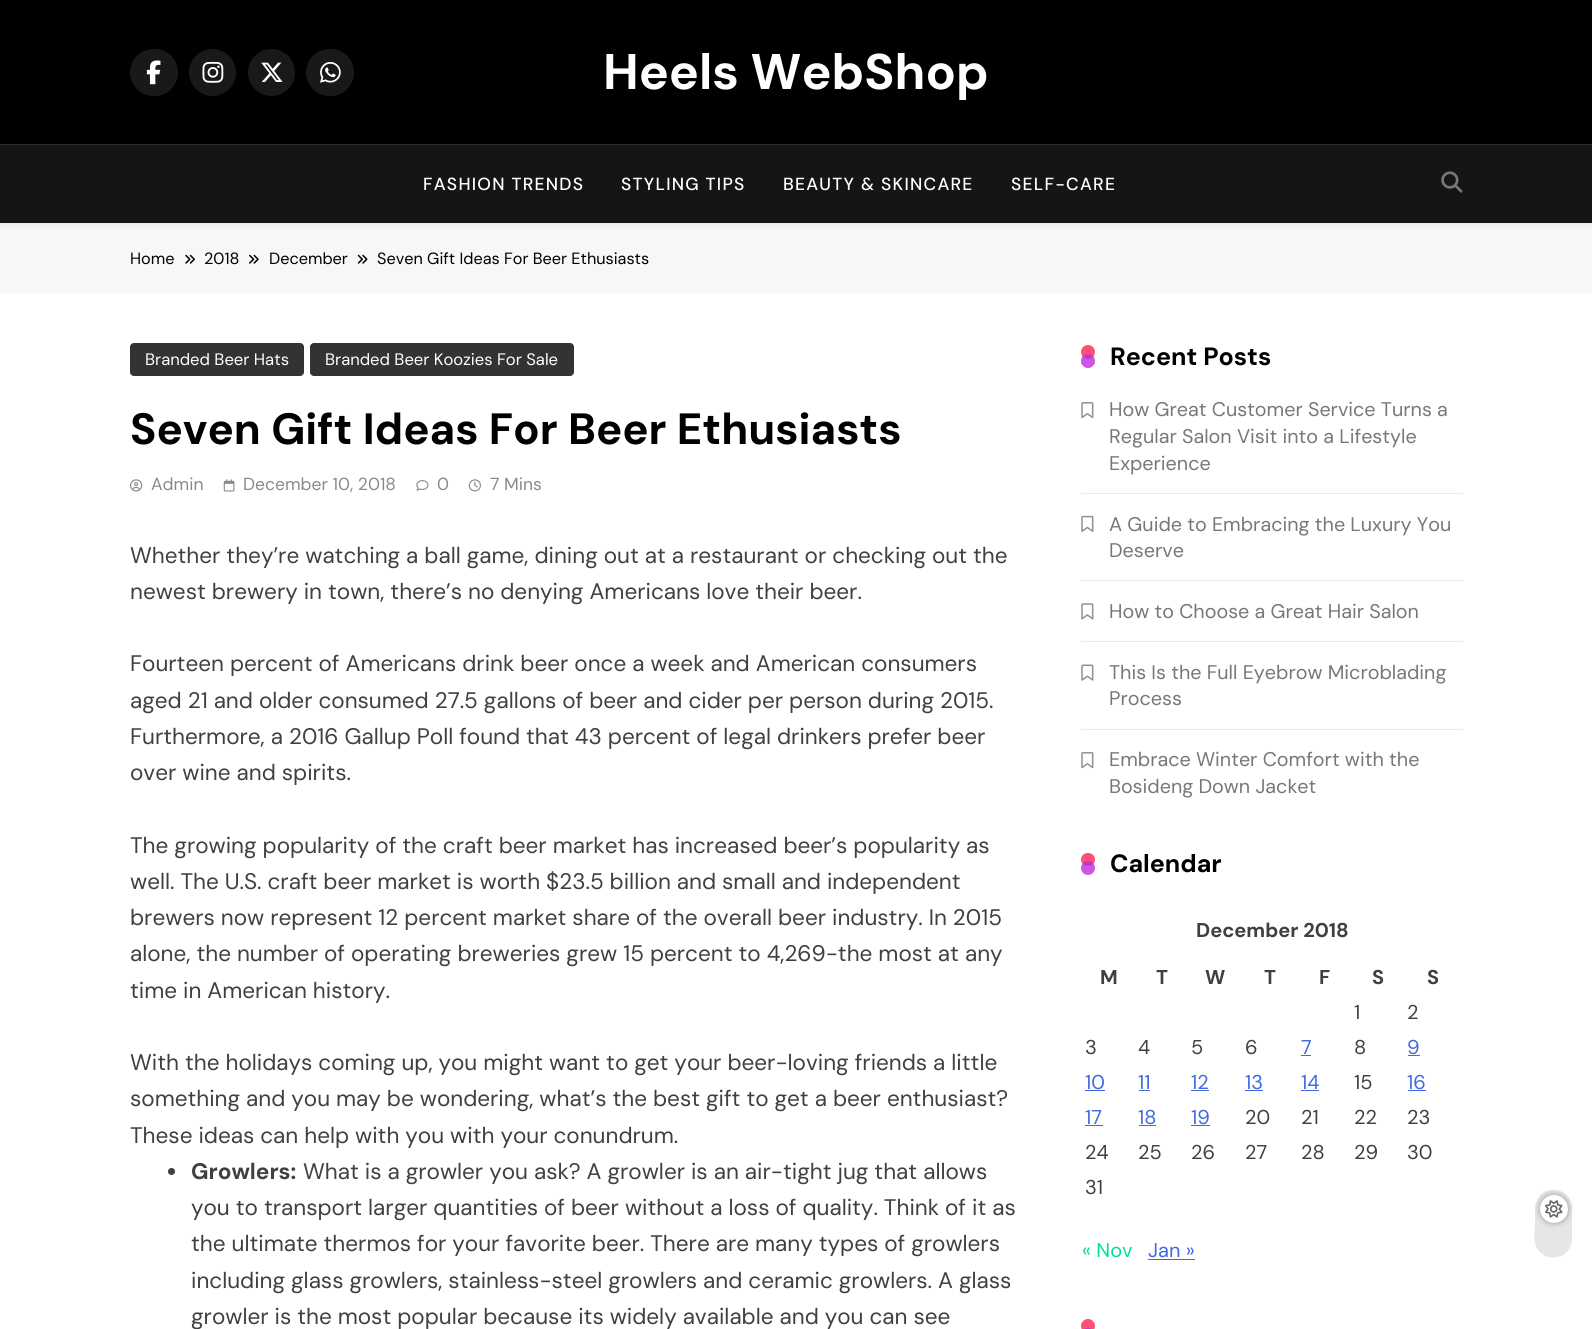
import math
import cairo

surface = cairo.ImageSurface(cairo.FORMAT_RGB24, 1592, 1329)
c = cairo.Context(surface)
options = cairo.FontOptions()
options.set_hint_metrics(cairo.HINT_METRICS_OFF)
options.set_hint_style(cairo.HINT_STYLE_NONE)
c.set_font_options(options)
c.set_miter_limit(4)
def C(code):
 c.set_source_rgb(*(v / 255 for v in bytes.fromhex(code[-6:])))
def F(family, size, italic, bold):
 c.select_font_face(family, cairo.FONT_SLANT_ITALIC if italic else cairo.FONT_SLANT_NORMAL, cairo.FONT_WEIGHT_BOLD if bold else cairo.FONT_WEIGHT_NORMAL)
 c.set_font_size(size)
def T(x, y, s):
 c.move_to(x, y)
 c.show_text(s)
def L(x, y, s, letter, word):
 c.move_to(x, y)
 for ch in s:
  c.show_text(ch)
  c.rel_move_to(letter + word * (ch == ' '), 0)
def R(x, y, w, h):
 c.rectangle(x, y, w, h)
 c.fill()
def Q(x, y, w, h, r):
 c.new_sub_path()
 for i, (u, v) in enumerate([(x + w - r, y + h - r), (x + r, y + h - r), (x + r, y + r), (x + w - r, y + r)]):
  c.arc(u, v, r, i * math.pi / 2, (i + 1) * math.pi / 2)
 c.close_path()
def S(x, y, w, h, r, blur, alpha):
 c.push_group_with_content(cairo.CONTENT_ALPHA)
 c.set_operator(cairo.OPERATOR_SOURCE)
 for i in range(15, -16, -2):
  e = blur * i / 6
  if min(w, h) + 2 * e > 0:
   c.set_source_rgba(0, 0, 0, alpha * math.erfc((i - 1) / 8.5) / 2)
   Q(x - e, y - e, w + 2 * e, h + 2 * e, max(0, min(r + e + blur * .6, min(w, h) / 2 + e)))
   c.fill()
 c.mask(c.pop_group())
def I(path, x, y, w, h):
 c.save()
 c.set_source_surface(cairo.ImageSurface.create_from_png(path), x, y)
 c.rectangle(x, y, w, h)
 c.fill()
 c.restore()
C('ffffff')
c.paint()
C('f7f7f7')
R(0,223,1592,70)
C('000000')
S(0,4,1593,222,0,2.5,.05)
C('000000')
R(0,0,1592,144)
C('191919')
Q(130,49,48,47,23.5)
c.fill()
I('1.png',146,60,15,25)
c.arc(212.5,72.5,23.5,0,2 * math.pi)
c.fill()
I('2.png',202,61,22,22)
c.arc(271.5,72.5,23.5,0,2 * math.pi)
c.fill()
I('3.png',261,62,22,20)
Q(306,49,48,47,23.5)
c.fill()
I('4.png',320,61,21,22)
F('DM Sans',50,0,1)
C('ffffff')
T(603,89,'Heels WebShop')
C('151515')
R(0,145,1592,78)
C('2c2c2c')
R(0,144,1592,1)
F('DM Sans Medium',17.5,0,0)
C('ffffff')
L(423,190,'FASHION TRENDS',1.25,0)
L(621,190,'STYLING TIPS',1.25,0)
L(783,190,'BEAUTY & SKINCARE',1.25,0)
L(1011,190,'SELF-CARE',1.25,0)
I('5.png',1441,171,22,22)
F('DM Sans',16.25,0,0)
C('000000')
T(130,264,'Home')
I('6.png',185,254,10,10)
T(204,264,'2018')
I('7.png',249,254,10,10)
T(269,264,'December')
I('8.png',357,254,11,10)
T(377,264,'Seven Gift Ideas For Beer Ethusiasts')
C('333333')
Q(130,343,174,33,4)
c.fill()
F('DM Sans',16.6,0,0)
C('ffffff')
T(145,365,'Branded Beer Hats')
C('333333')
Q(310,343,264,33,4)
c.fill()
C('ffffff')
T(325,365,'Branded Beer Koozies For Sale')
F('DM Sans',43.75,0,1)
C('000000')
T(130,444,'Seven Gift Ideas For Beer Ethusiasts')
I('9.png',130,479,13,13)
F('DM Sans',17.5,0,0)
C('8a8a8c')
T(151,490,'Admin')
I('10.png',223,479,12,13)
T(243,490,'December 10, 2018')
I('11.png',416,480,13,11)
T(437,490,'0')
I('12.png',468,479,13,13)
T(490,490,'7 Mins')
F('DM Sans',22.5,0,0)
C('404040')
T(130,563,'Whether they’re watching a ball game, dining out at a restaurant or checking out the')
T(130,599,'newest brewery in town, there’s no denying Americans love their beer.')
T(130,671,'Fourteen percent of Americans drink beer once a week and American consumers')
T(130,708,'aged 21 and older consumed 27.5 gallons of beer and cider per person during 2015.')
T(130,744,'Furthermore, a 2016 Gallup Poll found that 43 percent of legal drinkers prefer beer')
T(130,780,'over wine and spirits.')
T(130,853,'The growing popularity of the craft beer market has increased beer’s popularity as')
T(130,889,'well. The U.S. craft beer market is worth $23.5 billion and small and independent')
T(130,925,'brewers now represent 12 percent market share of the overall beer industry. In 2015')
T(130,961,'alone, the number of operating breweries grew 15 percent to 4,269-the most at any')
T(130,998,'time in American history.')
T(130,1070,'With the holidays coming up, you might want to get your beer-loving friends a little')
T(130,1106,'something and you may be wondering, what’s the best gift to get a beer enthusiast?')
T(130,1143,'These ideas can help with you with your conundrum.')
c.new_path()
c.arc(171.5,1171.5,3.5,0,2 * math.pi)
c.fill()
F('DM Sans',22.5,0,1)
T(191,1179,'Growlers:')
F('DM Sans',22.5,0,0)
T(303,1179,'What is a growler you ask? A growler is an air-tight jug that allows')
T(191,1215,'you to transport larger quantities of beer without a loss of quality. Think of it as')
T(191,1251,'the ultimate thermos for your favorite beer. There are many types of growlers')
T(191,1288,'including glass growlers, stainless-steel growlers and ceramic growlers. A glass')
T(191,1324,'growler is the most popular because its widely available and you can see')
C('ff5075')
c.new_path()
c.arc(1088,352,7,0,2 * math.pi)
c.fill()
F('DM Sans',25,0,1)
C('000000')
T(1110,365,'Recent Posts')
c.set_source_rgba(0.745,0.18,0.867,0.8)
c.new_path()
c.arc(1088,361,7,0,2 * math.pi)
c.fill()
I('13.png',1081,402,13,17)
F('DM Sans',19.75,0,0)
C('777777')
T(1109,416,'How Great Customer Service Turns a')
T(1109,443,'Regular Salon Visit into a Lifestyle')
T(1109,470,'Experience')
C('eaeaea')
R(1081,493,382,1)
I('14.png',1081,515,13,17)
C('777777')
T(1109,531,'A Guide to Embracing the Luxury You')
T(1109,557,'Deserve')
C('eaeaea')
R(1081,580,382,1)
I('15.png',1081,603,13,17)
C('777777')
T(1109,618,'How to Choose a Great Hair Salon')
C('eaeaea')
R(1081,641,382,1)
I('16.png',1081,664,13,17)
C('777777')
T(1109,679,'This Is the Full Eyebrow Microblading')
T(1109,705,'Process')
C('eaeaea')
R(1081,729,382,1)
I('13.png',1081,752,13,17)
C('777777')
T(1109,766,'Embrace Winter Comfort with the')
T(1109,793,'Bosideng Down Jacket')
C('ff5075')
Q(1081,853,14,13,6.5)
c.fill()
F('DM Sans',25,0,1)
C('000000')
T(1110,872,'Calendar')
c.set_source_rgba(0.745,0.18,0.867,0.8)
c.new_path()
c.arc(1088,868,7,0,2 * math.pi)
c.fill()
F('DM Sans',20,0,1)
C('404040')
T(1196,937,'December 2018')
T(1100,984,'M')
T(1156,984,'T')
T(1205,984,'W')
T(1264,984,'T')
T(1319,984,'F')
T(1372,984,'S')
T(1427,984,'S')
F('DM Sans',20,0,0)
T(1354,1019,'1')
T(1407,1019,'2')
T(1085,1054,'3')
T(1138,1054,'4')
T(1191,1054,'5')
T(1245,1054,'6')
C('4169e1')
T(1301,1054,'7')
R(1301,1055,10,1)
C('404040')
T(1354,1054,'8')
C('4169e1')
T(1407,1054,'9')
R(1408,1055,12,1)
T(1085,1089,'10')
R(1085,1090,20,1)
T(1138,1089,'11')
R(1139,1090,11,1)
T(1191,1089,'12')
R(1191,1090,18,1)
T(1245,1089,'13')
R(1245,1090,18,1)
T(1301,1089,'14')
R(1301,1090,18,1)
C('404040')
T(1354,1089,'15')
C('4169e1')
T(1407,1089,'16')
R(1408,1090,18,1)
T(1085,1124,'17')
R(1085,1125,18,1)
T(1138,1124,'18')
R(1139,1125,17,1)
T(1191,1124,'19')
R(1191,1125,19,1)
C('404040')
T(1245,1124,'20')
T(1301,1124,'21')
T(1354,1124,'22')
T(1407,1124,'23')
T(1085,1159,'24')
T(1138,1159,'25')
T(1191,1159,'26')
T(1245,1159,'27')
T(1301,1159,'28')
T(1354,1159,'29')
T(1407,1159,'30')
T(1085,1194,'31')
C('02de9c')
T(1082,1257,'« Nov')
C('4169e1')
T(1148,1257,'Jan »')
R(1148,1259,47,1)
C('ff5075')
c.new_path()
c.arc(1088,1326,7,0,2 * math.pi)
c.fill()
C('cb35c8')
Q(1081,1328,14,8,6.5)
c.fill()
C('e6e6e6')
c.new_path()
c.move_to(1572,1209)
c.line_to(1572,1239)
c.curve_to(1572,1259,1544,1265,1536,1246)
c.curve_to(1533,1239,1535,1231,1535,1224)
c.line_to(1535,1209)
c.curve_to(1536,1183,1572,1184,1572,1209)
c.close_path()
c.fill()
C('000000')
S(1540,1195,28,28,14,3,.35)
C('ffffff')
c.arc(1554,1209,14,0,2 * math.pi)
c.fill()
I('17.png',1545,1200,18,18)
surface.write_to_png('o.png')
